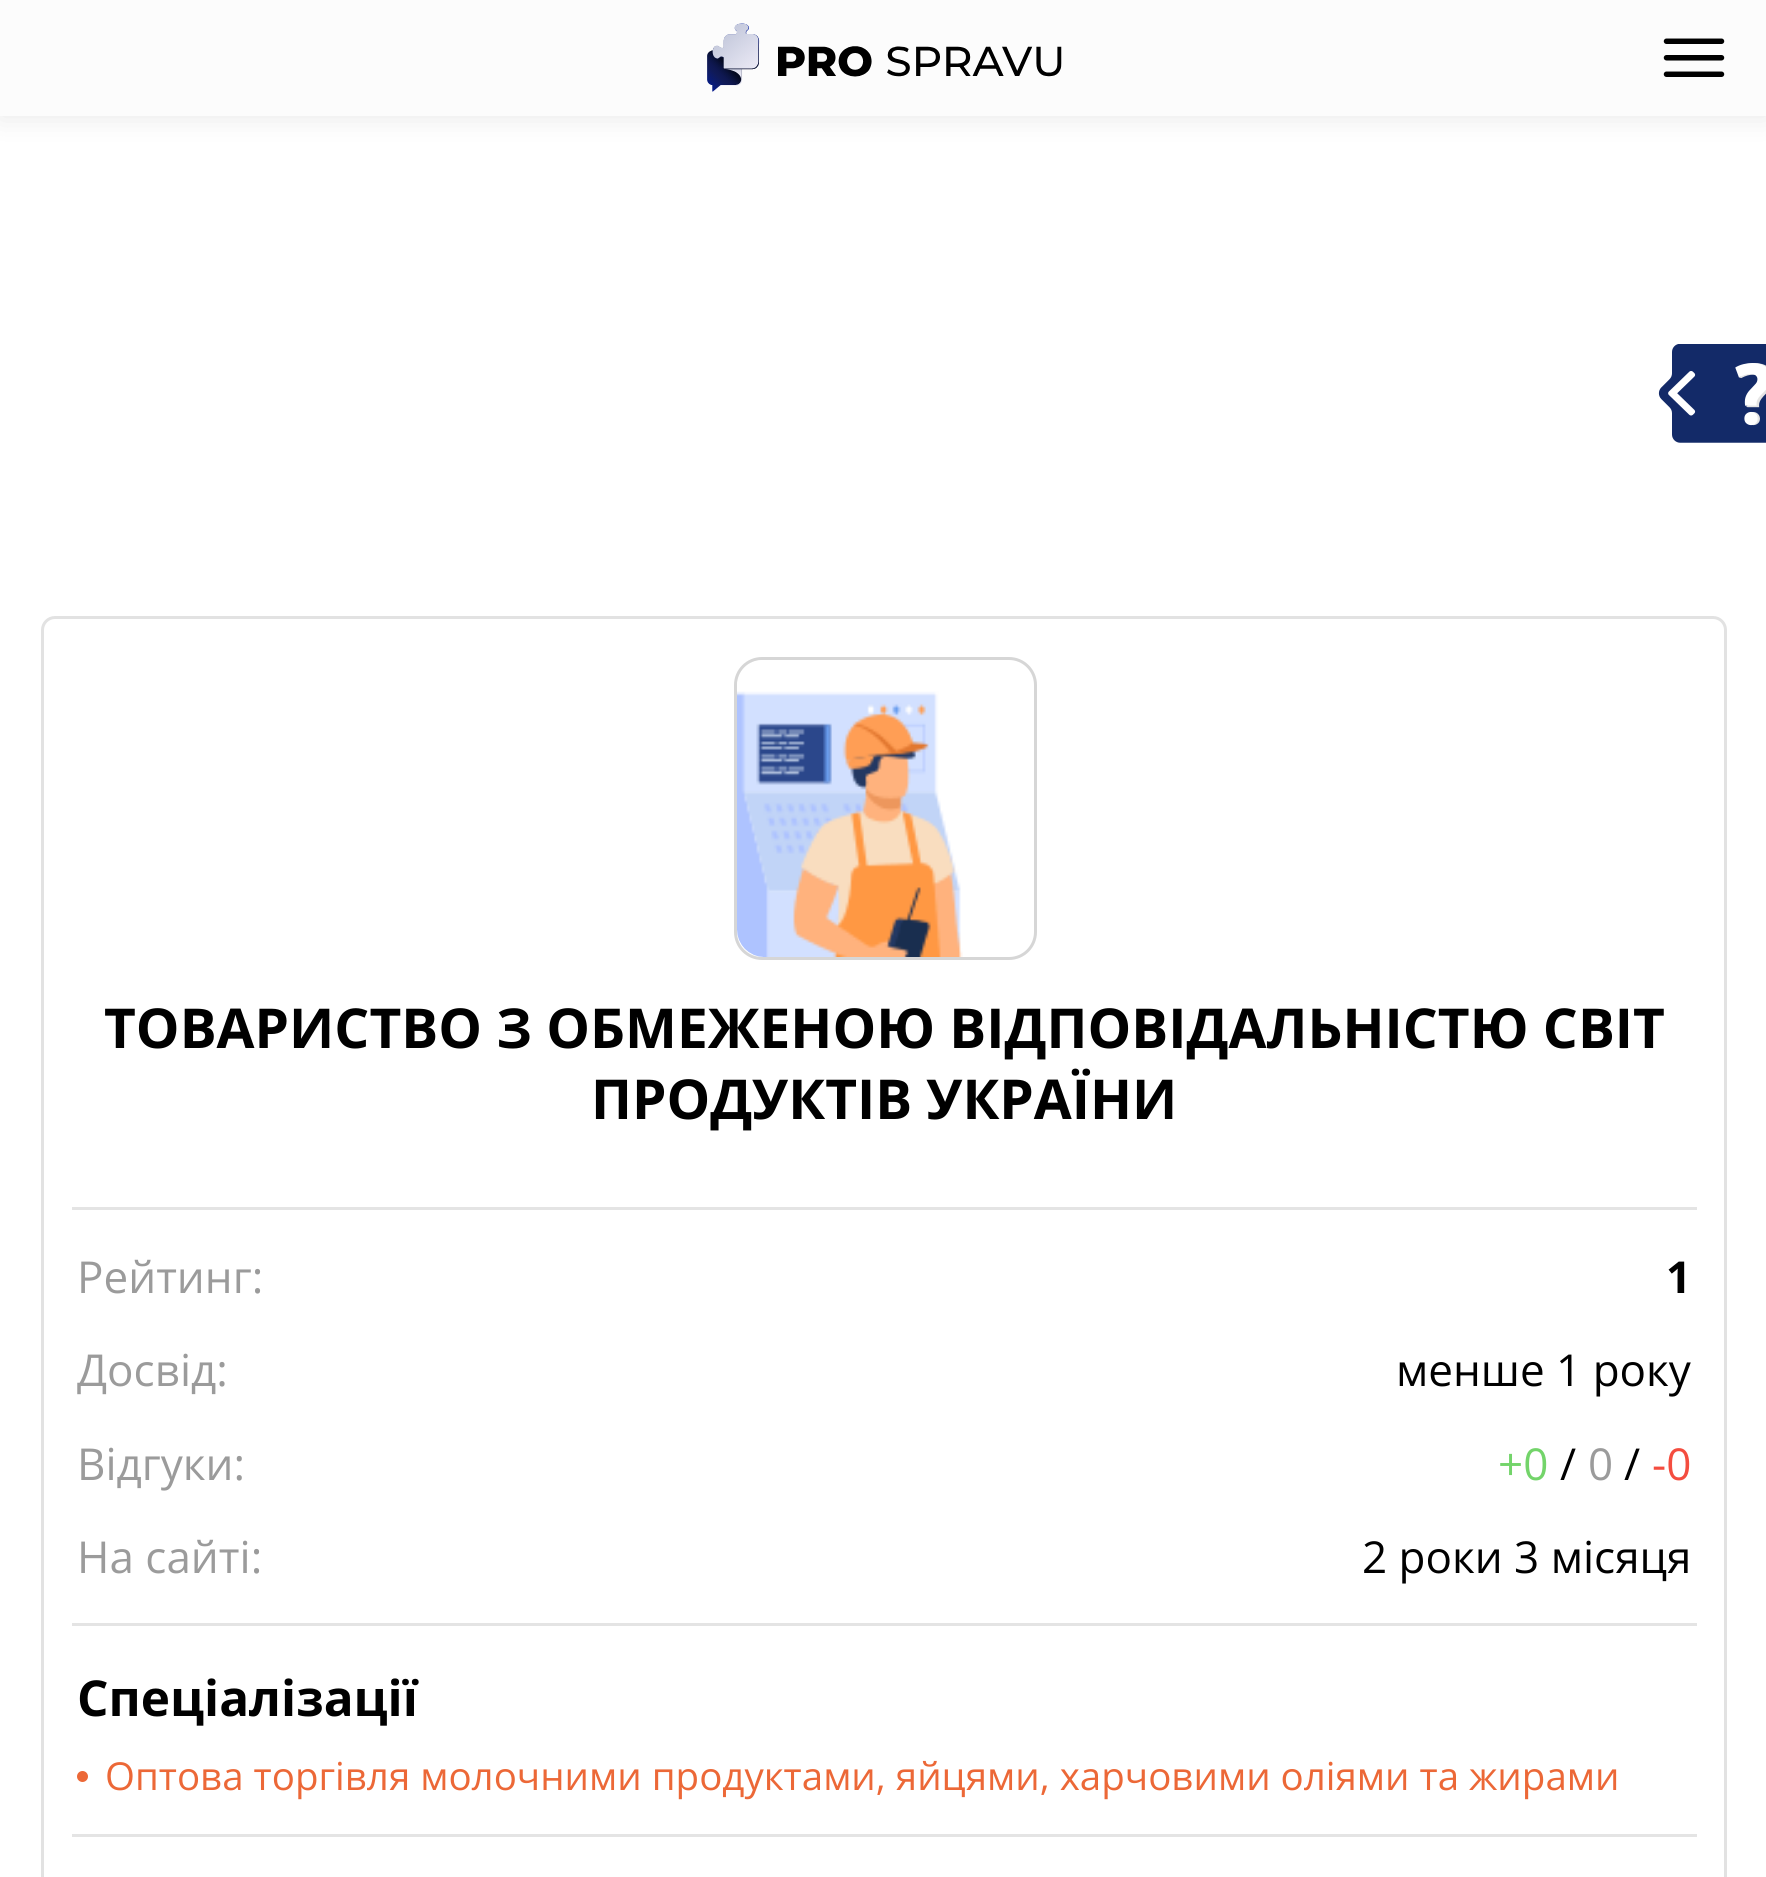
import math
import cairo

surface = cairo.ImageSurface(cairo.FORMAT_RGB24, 1766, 1877)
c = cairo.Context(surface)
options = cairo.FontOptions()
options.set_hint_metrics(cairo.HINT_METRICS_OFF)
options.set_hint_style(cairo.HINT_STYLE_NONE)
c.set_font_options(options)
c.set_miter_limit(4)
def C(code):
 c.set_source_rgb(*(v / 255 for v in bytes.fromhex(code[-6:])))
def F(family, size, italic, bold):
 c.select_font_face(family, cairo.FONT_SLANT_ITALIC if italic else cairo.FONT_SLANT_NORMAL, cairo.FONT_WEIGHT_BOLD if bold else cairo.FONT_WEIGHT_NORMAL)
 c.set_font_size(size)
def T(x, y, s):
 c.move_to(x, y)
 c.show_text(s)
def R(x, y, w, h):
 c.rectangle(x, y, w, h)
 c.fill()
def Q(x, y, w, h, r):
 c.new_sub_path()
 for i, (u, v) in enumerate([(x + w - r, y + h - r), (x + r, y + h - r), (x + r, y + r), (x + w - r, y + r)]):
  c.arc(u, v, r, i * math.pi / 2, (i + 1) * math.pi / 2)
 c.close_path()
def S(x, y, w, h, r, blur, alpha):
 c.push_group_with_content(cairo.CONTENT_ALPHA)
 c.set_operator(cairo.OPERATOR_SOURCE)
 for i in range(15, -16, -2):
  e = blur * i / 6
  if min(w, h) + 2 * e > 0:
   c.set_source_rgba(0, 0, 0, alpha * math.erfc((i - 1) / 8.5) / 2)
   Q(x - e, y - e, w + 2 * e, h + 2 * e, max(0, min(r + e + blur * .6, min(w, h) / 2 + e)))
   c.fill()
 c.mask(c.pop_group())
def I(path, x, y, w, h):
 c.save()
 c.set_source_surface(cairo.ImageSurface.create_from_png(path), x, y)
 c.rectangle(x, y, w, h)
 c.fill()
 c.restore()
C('ffffff')
c.paint()
C('000000')
S(0,0,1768,116,0,14,.1)
C('fcfcfc')
R(0,0,1766,116)
I('1.png',707,23,355,69)
I('2.png',1663,38,62,39)
I('3.png',1658,344,108,99)
Q(42.5,617.5,1683,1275,12.5)
C('e2e2e2')
c.set_line_width(3)
c.stroke()
Q(735.5,658.5,300,300,26.5)
C('d6d6d6')
c.stroke()
I('4.png',737,660,226,297)
F('Open Sans',55,0,1)
C('000000')
T(104,1048,'ТОВАРИСТВО З ОБМЕЖЕНОЮ ВІДПОВІДАЛЬНІСТЮ СВІТ')
T(591,1119,'ПРОДУКТІВ УКРАЇНИ')
C('e4e4e4')
R(72,1207,1625,3)
R(72,1623,1625,3)
F('Open Sans',44,0,0)
C('9b9b9b')
T(77,1293,'Рейтинг:')
F('Open Sans',44,0,1)
C('000000')
T(1666,1293,'1')
F('Open Sans',44,0,0)
C('9b9b9b')
T(77,1386,'Досвід:')
C('000000')
T(1396,1386,'менше 1 року')
C('9b9b9b')
T(77,1480,'Відгуки:')
C('73d46a')
T(1498,1480,'+0')
C('000000')
T(1560,1480,'/')
C('9b9b9b')
T(1588,1480,'0')
C('000000')
T(1624,1480,'/')
C('f44d3f')
T(1652,1480,'-0')
C('9b9b9b')
T(77,1573,'На сайті:')
C('000000')
T(1362,1573,'2 роки 3 місяця')
C('e4e4e4')
R(72,1834,1625,3)
F('Open Sans',49.5,0,1)
C('000000')
T(77,1716,'Спеціалізації')
C('ec6837')
c.new_path()
c.arc(82.5,1776.5,5.5,0,2 * math.pi)
c.fill()
F('Open Sans',38.5,0,0)
T(105,1790,'Оптова торгівля молочними продуктами, яйцями, харчовими оліями та жирами')
surface.write_to_png('o.png')
